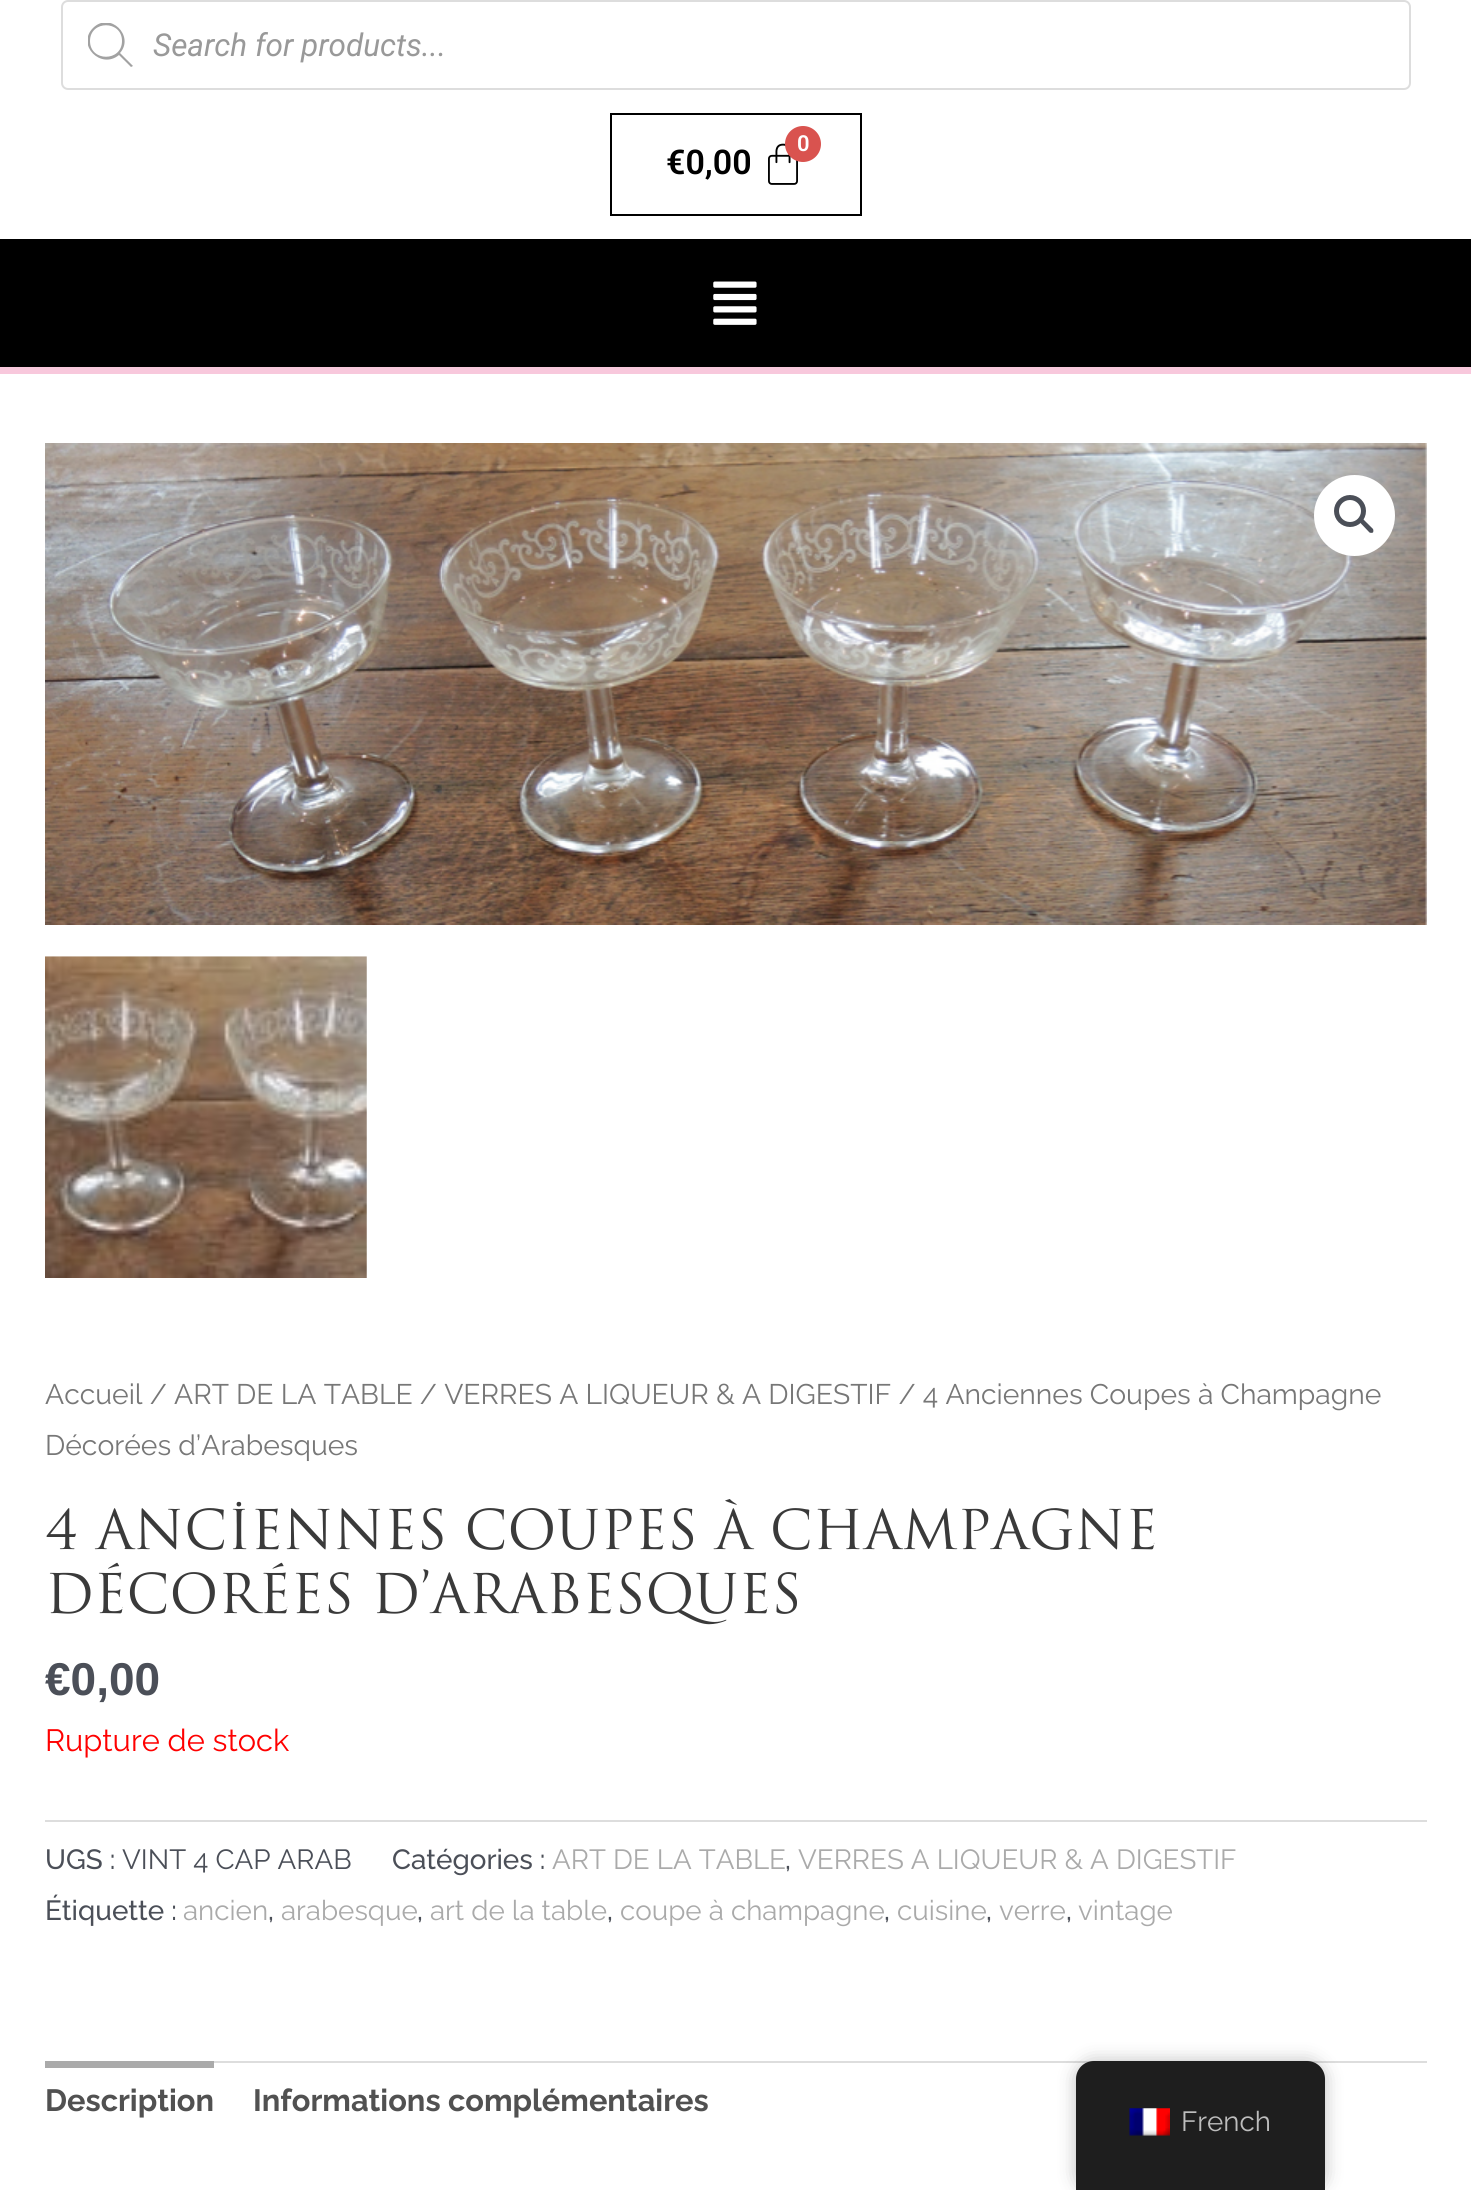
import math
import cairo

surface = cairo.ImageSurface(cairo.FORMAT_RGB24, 1471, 2190)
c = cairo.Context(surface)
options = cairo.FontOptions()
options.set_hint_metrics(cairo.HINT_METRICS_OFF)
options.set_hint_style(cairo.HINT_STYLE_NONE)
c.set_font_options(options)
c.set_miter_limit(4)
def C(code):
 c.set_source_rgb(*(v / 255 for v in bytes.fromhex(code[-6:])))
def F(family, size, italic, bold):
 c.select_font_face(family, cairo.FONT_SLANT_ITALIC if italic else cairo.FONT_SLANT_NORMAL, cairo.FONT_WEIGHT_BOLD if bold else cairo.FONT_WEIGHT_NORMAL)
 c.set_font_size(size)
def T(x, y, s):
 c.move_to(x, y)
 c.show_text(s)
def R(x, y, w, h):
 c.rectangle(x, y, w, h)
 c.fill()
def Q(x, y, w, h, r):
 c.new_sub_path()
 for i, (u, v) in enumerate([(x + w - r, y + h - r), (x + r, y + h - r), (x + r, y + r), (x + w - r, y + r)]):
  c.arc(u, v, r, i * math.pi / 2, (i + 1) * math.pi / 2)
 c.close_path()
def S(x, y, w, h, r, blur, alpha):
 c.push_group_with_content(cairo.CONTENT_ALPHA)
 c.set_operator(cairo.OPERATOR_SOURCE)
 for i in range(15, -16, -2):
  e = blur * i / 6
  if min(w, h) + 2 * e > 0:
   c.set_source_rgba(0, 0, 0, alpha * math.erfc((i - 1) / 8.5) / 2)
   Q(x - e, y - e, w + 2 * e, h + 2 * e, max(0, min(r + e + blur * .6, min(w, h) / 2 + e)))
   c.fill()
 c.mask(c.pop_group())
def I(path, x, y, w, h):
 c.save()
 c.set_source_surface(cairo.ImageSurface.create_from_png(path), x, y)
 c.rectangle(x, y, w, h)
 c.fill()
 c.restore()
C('ffffff')
c.paint()
Q(62,1,1348,88,6)
C('dddddd')
c.stroke()
c.save()
c.rectangle(88,23,45,45)
c.clip()
C('a2a2a2')
c.new_path()
c.move_to(133,66)
c.line_to(120,53)
c.curve_to(135,36,110,11,93,28)
c.curve_to(76,45,101,70,119,55)
c.line_to(131,67)
c.close_path()
c.move_to(90,41)
c.curve_to(90,20,122,20,122,41)
c.curve_to(122,62,90,62,90,41)
c.close_path()
c.fill()
c.restore()
F('Roboto',31.5,1,0)
C('999999')
T(153,56,'Search for products...')
c.rectangle(611,114,250,101)
C('000000')
c.stroke()
I('1.png',768,143,30,42)
C('d9534f')
c.arc(803,144,18,0,2 * math.pi)
c.fill()
F('Roboto SemiBold',22,0,0)
C('ffffff')
T(797,151,'0')
F('Roboto SemiBold',34,0,0)
C('000000')
T(666,174,'€0,00')
R(0,239,1471,128)
C('f8c8dc')
R(0,367,1471,7)
I('2.png',713,281,44,44)
I('3.png',45,443,1382,482)
C('ffffff')
c.arc(1354.5,515.5,40.5,0,2 * math.pi)
c.fill()
c.arc(1350,511,13.5,0,2 * math.pi)
C('4b4f58')
c.set_line_width(5)
c.stroke()
c.new_path()
c.move_to(1360,519.5)
c.curve_to(1361,518.5,1362.5,518.5,1363.5,519.5)
c.line_to(1373,529)
c.curve_to(1373.5,530,1373.5,531.5,1373,532.5)
c.curve_to(1372,533,1370.5,533,1369.5,532.5)
c.line_to(1360,522.5)
c.curve_to(1359,522,1359,520.5,1360,519.5)
c.close_path()
c.fill()
I('4.png',45,956,322,322)
F('Raleway',28.3,0,0)
C('777777')
T(45,1404,'Accueil / ART DE LA TABLE / VERRES A LIQUEUR & A DIGESTIF / 4 Anciennes Coupes à Champagne')
T(45,1455,'Décorées d’Arabesques')
F('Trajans',53.35,0,0)
C('3a3a3a')
T(45,1549,'4 Anciennes Coupes à Champagne')
T(45,1613,'Décorées d’Arabesques')
F('Liberation Sans',46,0,1)
C('4b4f58')
T(45,1695,'€0,00')
F('Raleway',30.75,0,0)
C('ff0000')
T(45,1751,'Rupture de stock')
C('dddddd')
R(45,1820,1382,2)
F('Raleway Medium',27.75,0,0)
C('4b4f58')
T(45,1869,'UGS :')
F('Raleway',27.75,0,0)
T(122,1869,'VINT 4 CAP ARAB')
F('Raleway Medium',27.75,0,0)
T(392,1869,'Catégories :')
F('Raleway',27.75,0,0)
C('aaaaaa')
T(552,1869,'ART DE LA TABLE')
F('Raleway Medium',27.75,0,0)
C('4b4f58')
T(785,1869,',')
F('Raleway',27.75,0,0)
C('aaaaaa')
T(798,1869,'VERRES A LIQUEUR & A DIGESTIF')
F('Raleway Medium',27.75,0,0)
C('4b4f58')
T(45,1920,'Étiquette :')
F('Raleway',27.75,0,0)
C('aaaaaa')
T(183,1920,'ancien')
F('Raleway Medium',27.75,0,0)
C('4b4f58')
T(268,1920,',')
F('Raleway',27.75,0,0)
C('aaaaaa')
T(281,1920,'arabesque')
F('Raleway Medium',27.75,0,0)
C('4b4f58')
T(417,1920,',')
F('Raleway',27.75,0,0)
C('aaaaaa')
T(430,1920,'art de la table')
F('Raleway Medium',27.75,0,0)
C('4b4f58')
T(607,1920,',')
F('Raleway',27.75,0,0)
C('aaaaaa')
T(620,1920,'coupe à champagne')
F('Raleway Medium',27.75,0,0)
C('4b4f58')
T(884,1920,',')
F('Raleway',27.75,0,0)
C('aaaaaa')
T(897,1920,'cuisine')
F('Raleway Medium',27.75,0,0)
C('4b4f58')
T(986,1920,',')
F('Raleway',27.75,0,0)
C('aaaaaa')
T(999,1920,'verre')
F('Raleway Medium',27.75,0,0)
C('4b4f58')
T(1066,1920,',')
F('Raleway',27.75,0,0)
C('aaaaaa')
T(1078,1920,'vintage')
C('dddddd')
R(214,2061,1213,2)
C('aaaaaa')
R(45,2061,169,7)
F('Raleway',30.75,0,1)
C('515151')
T(45,2111,'Description')
T(253,2111,'Informations complémentaires')
C('000000')
S(1076,2061,249,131,18,9,.25)
C('1e1e1e')
c.new_path()
c.move_to(1094,2061)
c.line_to(1307,2061)
c.curve_to(1317,2061,1325,2069,1325,2079)
c.line_to(1325,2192)
c.line_to(1076,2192)
c.line_to(1076,2079)
c.curve_to(1076,2069,1084,2061,1094,2061)
c.close_path()
c.fill()
I('5.png',1129,2108,41,28)
F('Raleway',27.75,0,0)
C('bdbdbd')
T(1181,2131,'French')
surface.write_to_png('o.png')
